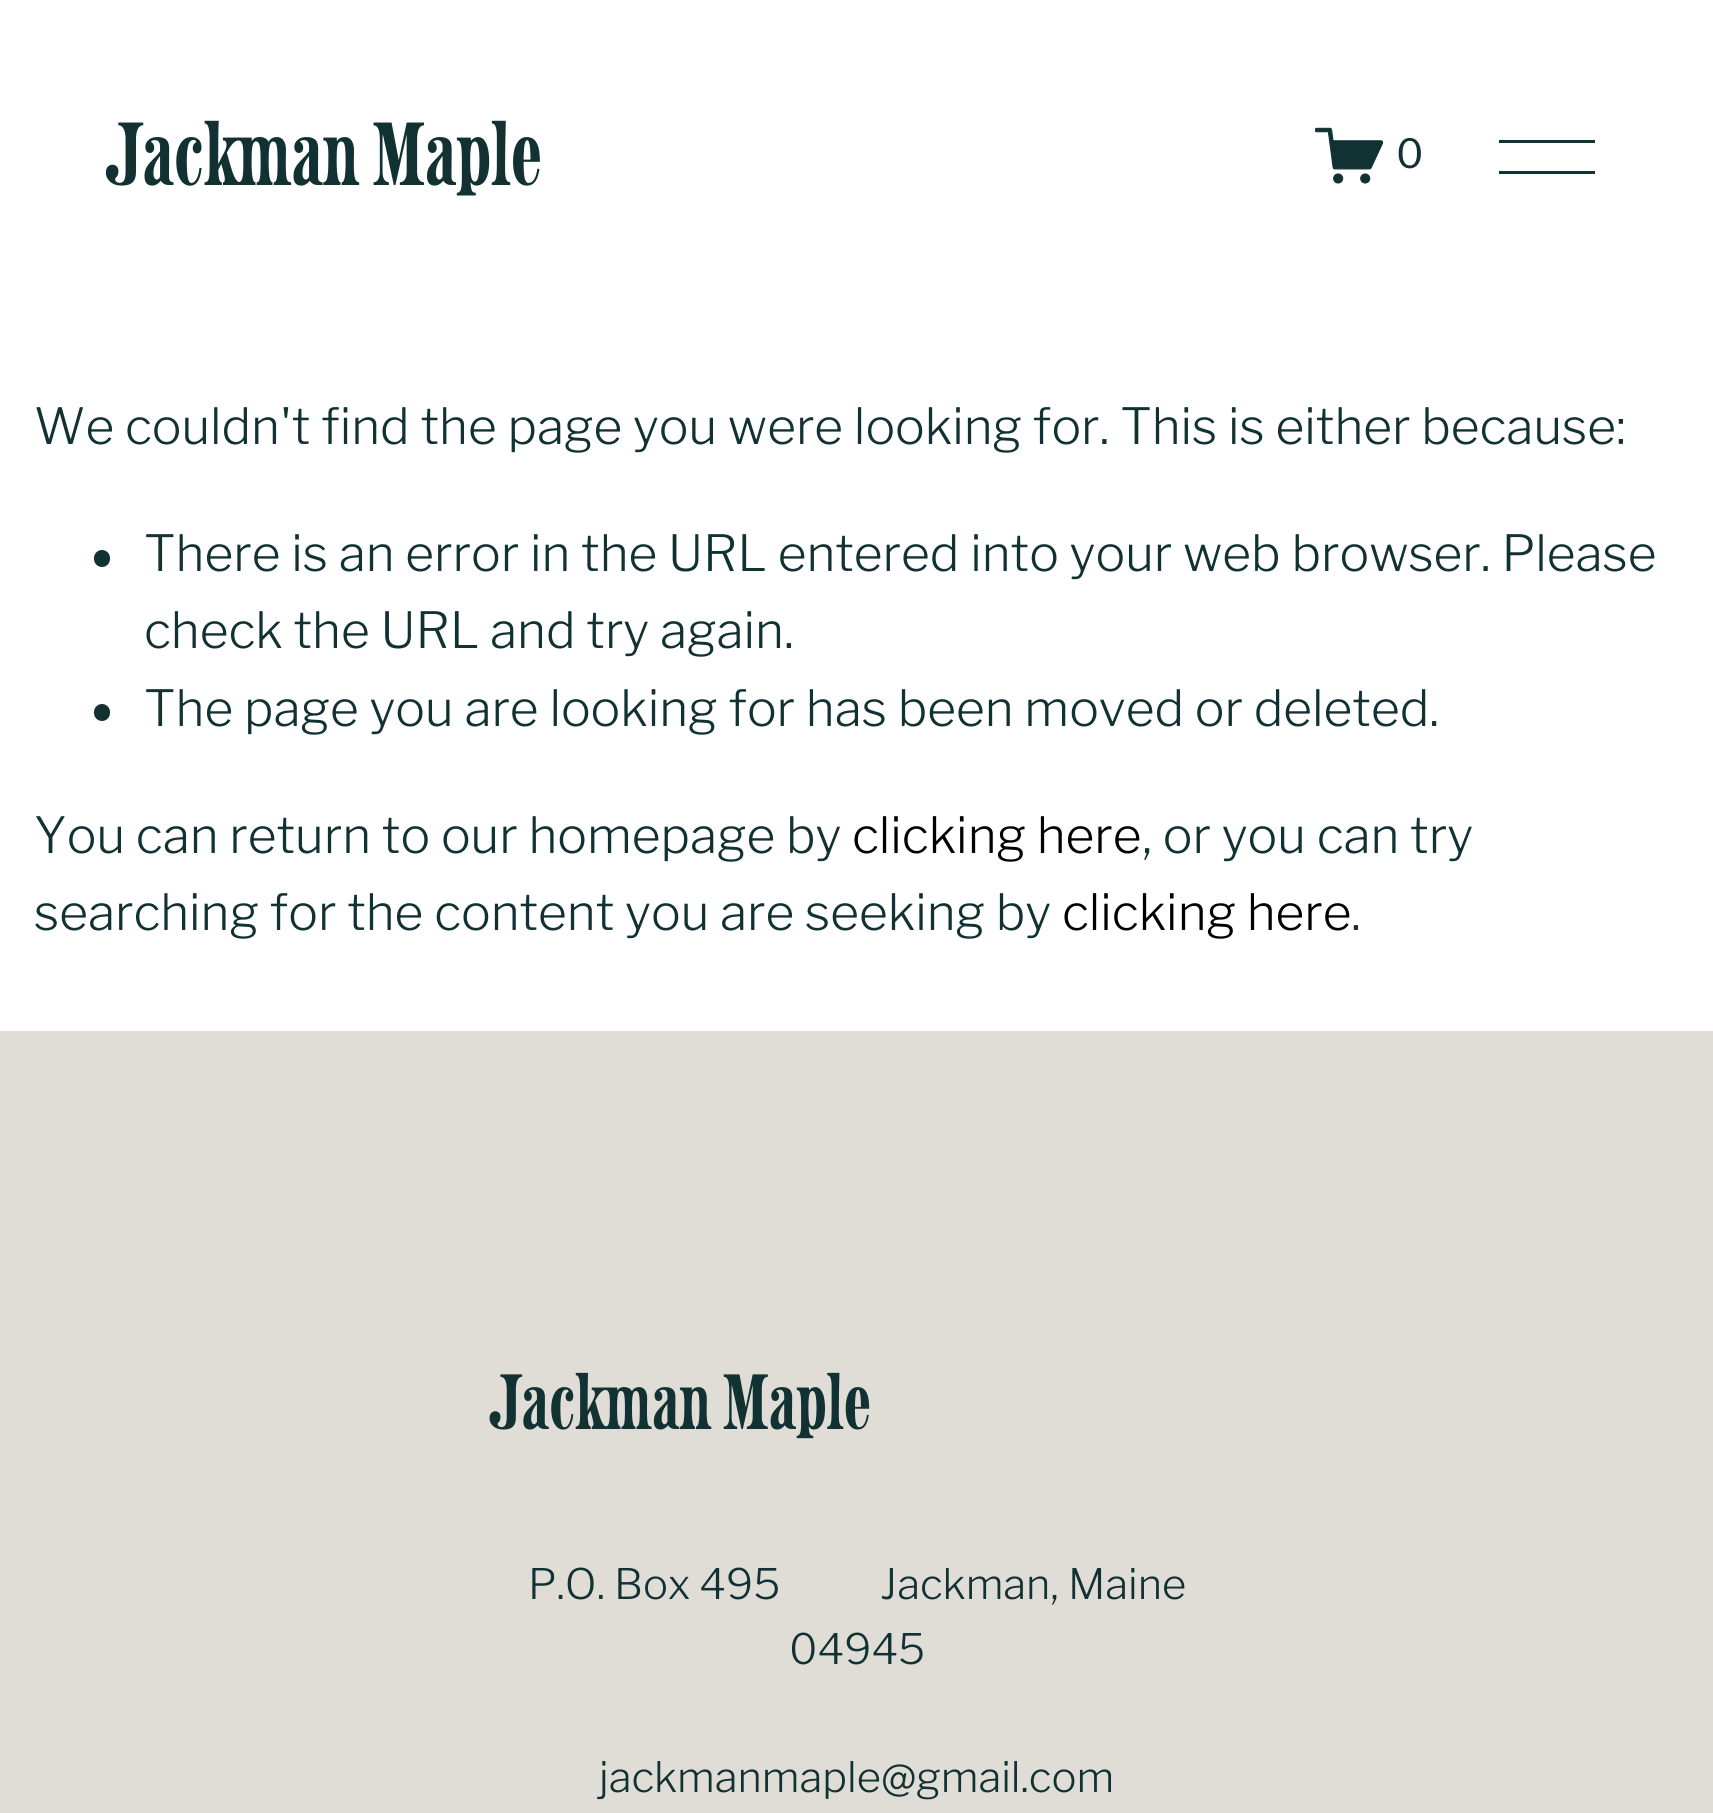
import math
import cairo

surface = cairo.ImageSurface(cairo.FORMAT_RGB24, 1713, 1813)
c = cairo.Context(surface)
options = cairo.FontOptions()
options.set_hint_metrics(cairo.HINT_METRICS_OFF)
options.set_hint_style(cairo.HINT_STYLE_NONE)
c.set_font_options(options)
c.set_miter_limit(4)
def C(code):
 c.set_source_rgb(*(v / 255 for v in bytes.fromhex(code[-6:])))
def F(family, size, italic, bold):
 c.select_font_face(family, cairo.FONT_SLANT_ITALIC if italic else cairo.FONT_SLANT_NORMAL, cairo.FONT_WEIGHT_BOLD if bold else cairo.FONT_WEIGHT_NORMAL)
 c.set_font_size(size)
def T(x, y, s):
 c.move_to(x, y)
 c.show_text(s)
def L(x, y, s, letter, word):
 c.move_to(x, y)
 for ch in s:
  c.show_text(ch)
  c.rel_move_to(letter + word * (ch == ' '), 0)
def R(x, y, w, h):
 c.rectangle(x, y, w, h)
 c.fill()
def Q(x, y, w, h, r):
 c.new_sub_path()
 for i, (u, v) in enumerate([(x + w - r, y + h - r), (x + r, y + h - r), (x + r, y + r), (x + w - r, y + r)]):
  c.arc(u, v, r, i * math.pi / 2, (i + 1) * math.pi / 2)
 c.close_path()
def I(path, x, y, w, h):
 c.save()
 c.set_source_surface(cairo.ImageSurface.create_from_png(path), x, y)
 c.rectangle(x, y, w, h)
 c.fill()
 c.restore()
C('ffffff')
c.paint()
F('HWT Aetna',87.5,0,0)
C('123133')
L(103,185,'Jackman Maple',-.9,0)
I('1.png',1315,127,68,57)
F('Libre Franklin',40,0,0)
L(1396,168,'0',1,0)
R(1499,140,96,3)
R(1499,171,96,3)
F('Libre Franklin Light',49.65,0,0)
T(34,444,'We couldn\'t find the page you were looking for. This is either because:')
Q(94,550,16,17,8)
c.fill()
T(144,571,'There is an error in the URL entered into your web browser. Please')
T(144,648,'check the URL and try again.')
Q(94,704,16,17,8)
c.fill()
T(144,726,'The page you are looking for has been moved or deleted.')
T(34,853,'You can return to our homepage by')
C('000000')
T(852,853,'clicking here')
C('123133')
T(1142,853,', or you can try')
T(34,930,'searching for the content you are seeking by')
C('000000')
T(1062,930,'clicking here')
C('123133')
T(1351,930,'.')
C('e0ddd7')
R(0,1031,1713,782)
F('HWT Aetna',76.5,0,0)
C('123133')
L(487,1429,'Jackman Maple',-.75,0)
F('Libre Franklin Light',41.8,0,0)
T(528,1599,'P.O. Box 495           Jackman, Maine')
T(789,1664,'04945')
T(599,1792,'jackmanmaple@gmail.com')
surface.write_to_png('o.png')
